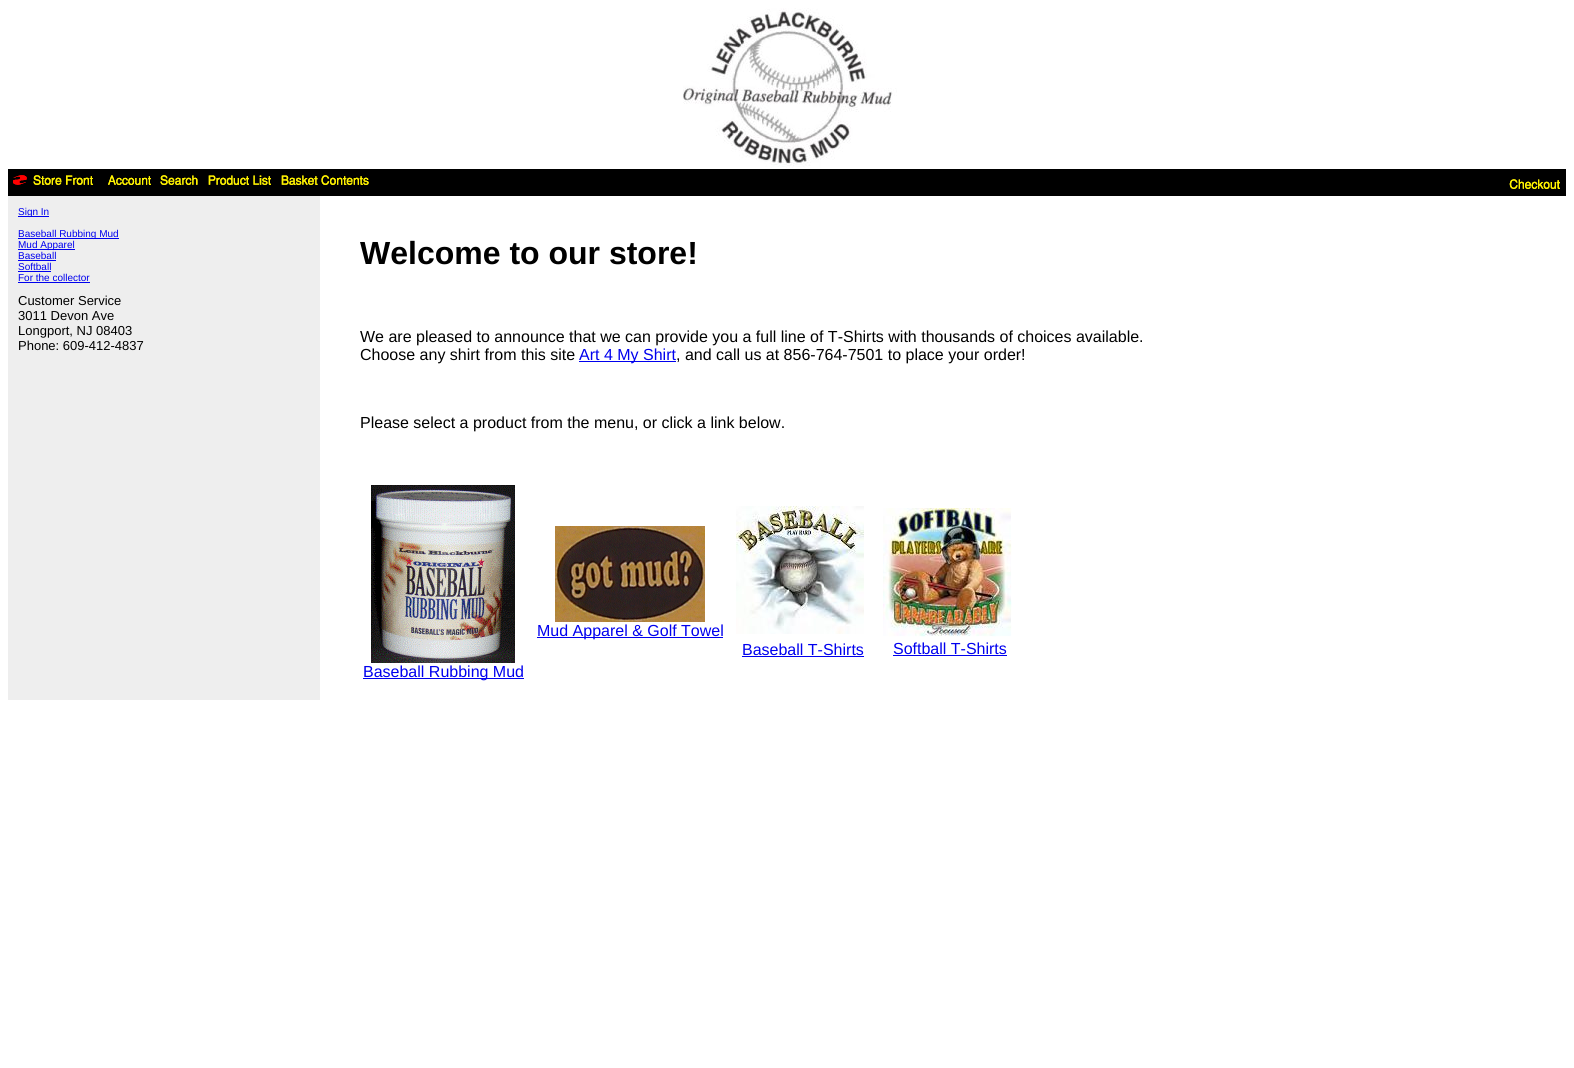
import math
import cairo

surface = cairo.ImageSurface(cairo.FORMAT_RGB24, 1574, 1068)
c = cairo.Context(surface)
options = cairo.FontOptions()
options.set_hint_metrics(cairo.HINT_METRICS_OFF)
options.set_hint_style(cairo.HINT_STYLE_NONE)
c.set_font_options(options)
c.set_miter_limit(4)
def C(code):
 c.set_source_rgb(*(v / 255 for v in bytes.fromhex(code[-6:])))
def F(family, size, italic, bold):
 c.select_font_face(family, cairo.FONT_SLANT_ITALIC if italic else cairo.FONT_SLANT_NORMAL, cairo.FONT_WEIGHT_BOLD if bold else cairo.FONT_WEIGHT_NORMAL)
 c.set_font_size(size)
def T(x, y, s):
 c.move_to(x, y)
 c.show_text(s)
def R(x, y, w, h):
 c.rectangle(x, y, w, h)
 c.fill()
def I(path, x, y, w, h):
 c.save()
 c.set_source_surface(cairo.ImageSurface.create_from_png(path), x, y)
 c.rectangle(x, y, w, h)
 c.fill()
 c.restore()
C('ffffff')
c.paint()
I('1.png',683,8,214,160)
C('000000')
R(8,169,1558,27)
I('2.png',13,175,14,10)
I('3.png',33,175,60,10)
I('4.png',108,175,43,10)
I('5.png',160,175,38,10)
I('6.png',208,175,63,10)
I('7.png',281,175,88,10)
I('8.png',1509,179,51,10)
C('eeeeee')
R(8,196,312,504)
C('0000ee')
R(18,216,31,1)
F('Liberation Sans',10,0,0)
T(18,215,'Sign In')
R(18,238,101,1)
T(18,237,'Baseball Rubbing Mud')
R(18,249,57,1)
T(18,248,'Mud Apparel')
T(18,259,'Baseball')
R(18,260,38,1)
T(18,270,'Softball')
R(18,271,33,1)
T(18,281,'For the collector')
R(18,282,72,1)
F('Liberation Sans',13,0,0)
C('000000')
T(18,305,'Customer Service')
T(18,320,'3011 Devon Ave')
T(18,335,'Longport, NJ 08403')
T(18,350,'Phone: 609-412-4837')
F('Liberation Sans',32,0,1)
T(360,264,'Welcome to our store!')
F('Liberation Sans',16,0,0)
T(360,342,'We are pleased to announce that we can provide you a full line of T-Shirts with thousands of choices available.')
T(360,360,'Choose any shirt from this site')
C('0000ee')
R(579,361,97,1)
T(579,360,'Art 4 My Shirt')
C('000000')
T(676,360,', and call us at 856-764-7501 to place your order!')
T(360,428,'Please select a product from the menu, or click a link below.')
I('9.png',555,526,150,96)
C('0000ee')
R(537,637,186,1)
T(537,636,'Mud Apparel & Golf Towel')
I('10.png',736,506,128,128)
T(742,655,'Baseball T-Shirts')
R(742,656,122,1)
I('11.png',883,508,129,129)
T(893,654,'Softball T-Shirts')
R(893,655,114,1)
I('12.png',371,485,144,178)
R(363,678,161,1)
T(363,677,'Baseball Rubbing Mud')
surface.write_to_png('o.png')
